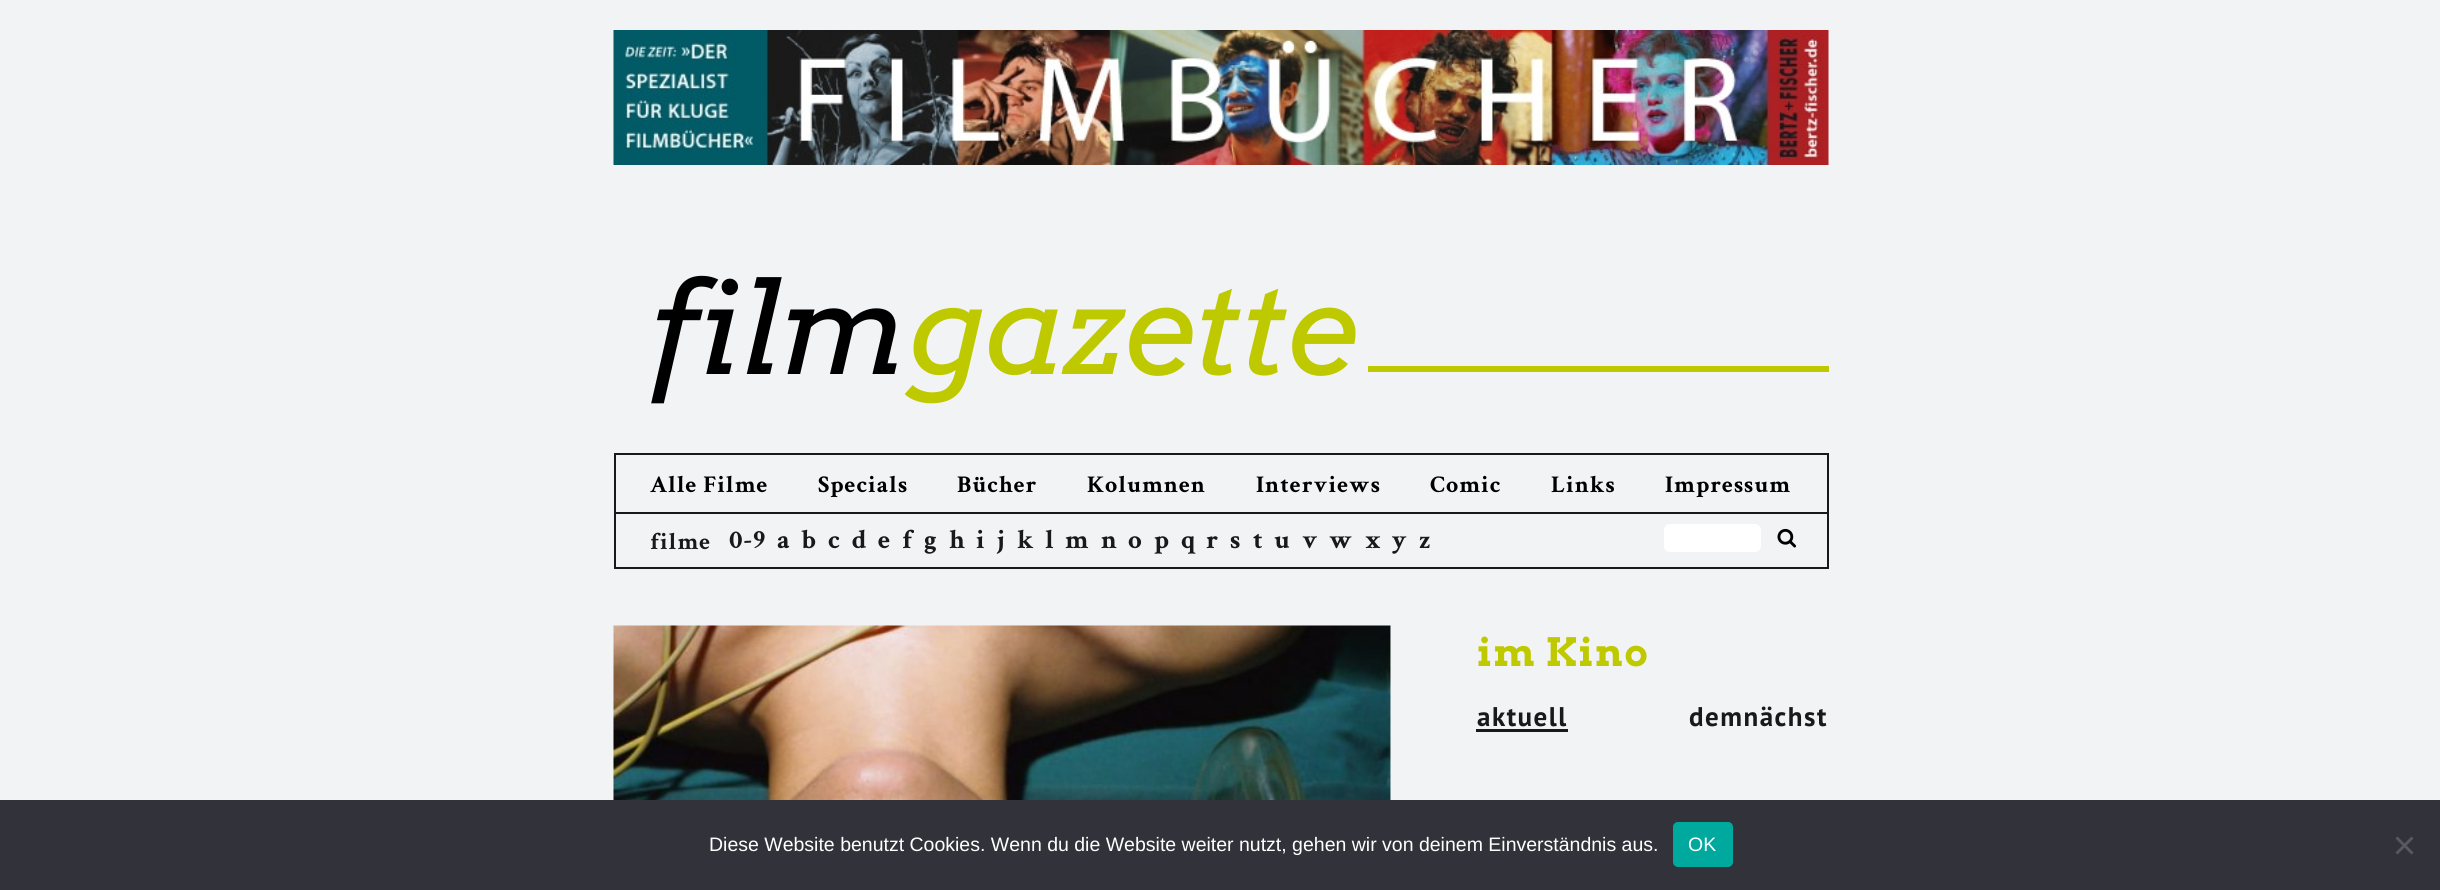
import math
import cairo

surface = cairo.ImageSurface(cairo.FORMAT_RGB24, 2440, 890)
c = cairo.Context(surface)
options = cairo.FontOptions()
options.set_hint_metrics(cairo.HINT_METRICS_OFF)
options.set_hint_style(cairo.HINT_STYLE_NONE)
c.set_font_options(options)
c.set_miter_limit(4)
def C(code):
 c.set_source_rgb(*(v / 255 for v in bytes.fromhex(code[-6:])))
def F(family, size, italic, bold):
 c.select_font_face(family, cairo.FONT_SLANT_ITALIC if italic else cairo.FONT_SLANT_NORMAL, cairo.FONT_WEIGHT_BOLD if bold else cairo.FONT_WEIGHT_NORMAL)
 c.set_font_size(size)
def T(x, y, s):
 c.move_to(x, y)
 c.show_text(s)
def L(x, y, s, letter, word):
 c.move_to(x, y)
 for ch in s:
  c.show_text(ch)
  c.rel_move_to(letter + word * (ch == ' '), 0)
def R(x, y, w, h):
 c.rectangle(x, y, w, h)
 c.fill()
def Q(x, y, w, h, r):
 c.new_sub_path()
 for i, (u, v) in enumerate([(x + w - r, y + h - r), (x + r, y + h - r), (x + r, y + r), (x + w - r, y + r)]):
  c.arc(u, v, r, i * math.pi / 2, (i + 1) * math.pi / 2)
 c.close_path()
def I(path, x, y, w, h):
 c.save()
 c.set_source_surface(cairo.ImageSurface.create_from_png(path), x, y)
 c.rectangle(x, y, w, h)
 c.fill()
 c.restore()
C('f2f3f5')
c.paint()
I('1.png',613,30,1216,135)
F('Arvo',127.5,1,0)
C('000000')
L(649,374,'film',-2.25,0)
C('bfc900')
L(907,374,'gazette',-2.25,0)
R(1368,366,461,6)
C('1a1919')
R(614,453,1215,2)
R(1827,453,2,59)
R(614,453,2,59)
F('Crimson Text',24,0,1)
C('000000')
L(650,492,'Alle Filme',1,0)
L(818,492,'Specials',1,0)
L(957,492,'Bücher',1,0)
L(1087,492,'Kolumnen',1,0)
L(1256,492,'Interviews',1,0)
L(1430,492,'Comic',1,0)
L(1551,492,'Links',1,0)
L(1665,492,'Impressum',1,0)
c.rectangle(615,513,1213,55)
C('1a1919')
c.stroke()
L(650,549,'filme',1,0)
F('Crimson Text',27,0,1)
L(729,548,'0-9',1,0)
L(777,548,'a',1,0)
L(801,548,'b',1,0)
L(828,548,'c',1,0)
L(852,548,'d',1,0)
L(878,548,'e',1,0)
L(902,548,'f',1,0)
L(924,548,'g',1,0)
L(949,548,'h',1,0)
L(976,548,'i',1,0)
L(997,548,'j',1,0)
L(1017,548,'k',1,0)
L(1045,548,'l',1,0)
L(1065,548,'m',1,0)
L(1101,548,'n',1,0)
L(1128,548,'o',1,0)
L(1154,548,'p',1,0)
L(1181,548,'q',1,0)
L(1206,548,'r',1,0)
L(1230,548,'s',1,0)
L(1253,548,'t',1,0)
L(1274,548,'u',1,0)
L(1302,548,'v',1,0)
L(1329,548,'w',1,0)
L(1365,548,'x',1,0)
L(1392,548,'y',1,0)
L(1419,548,'z',1,0)
C('ffffff')
Q(1665,525,95,26,5)
c.fill_preserve()
c.stroke()
I('2.png',1777,528,19,20)
R(1390,626,1,174)
I('3.png',613,625,778,175)
F('Arvo',39,0,1)
C('bfc900')
L(1477,666,'im Kino',1.5,0)
C('1a1919')
R(1476,729,92,3)
F('PT Sans',27,0,1)
L(1477,726,'aktuell',1.5,0)
L(1689,726,'demnächst',1.5,0)
C('32323a')
R(0,800,2440,90)
F('Liberation Sans',19.5,0,0)
C('ffffff')
T(709,851,'Diese Website benutzt Cookies. Wenn du die Website weiter nutzt, gehen wir von deinem Einverständnis aus.')
C('00a99d')
Q(1673,822,60,45,5)
c.fill()
C('ffffff')
T(1688,851,'OK')
C('59595d')
c.new_path()
c.move_to(2411.5,836.5)
c.line_to(2413.5,838.5)
c.line_to(2397.5,854.5)
c.line_to(2395.5,852.5)
c.close_path()
c.fill()
c.new_path()
c.move_to(2395.5,838.5)
c.line_to(2397.5,836.5)
c.line_to(2413.5,852.5)
c.line_to(2411.5,854.5)
c.close_path()
c.fill()
surface.write_to_png('o.png')
